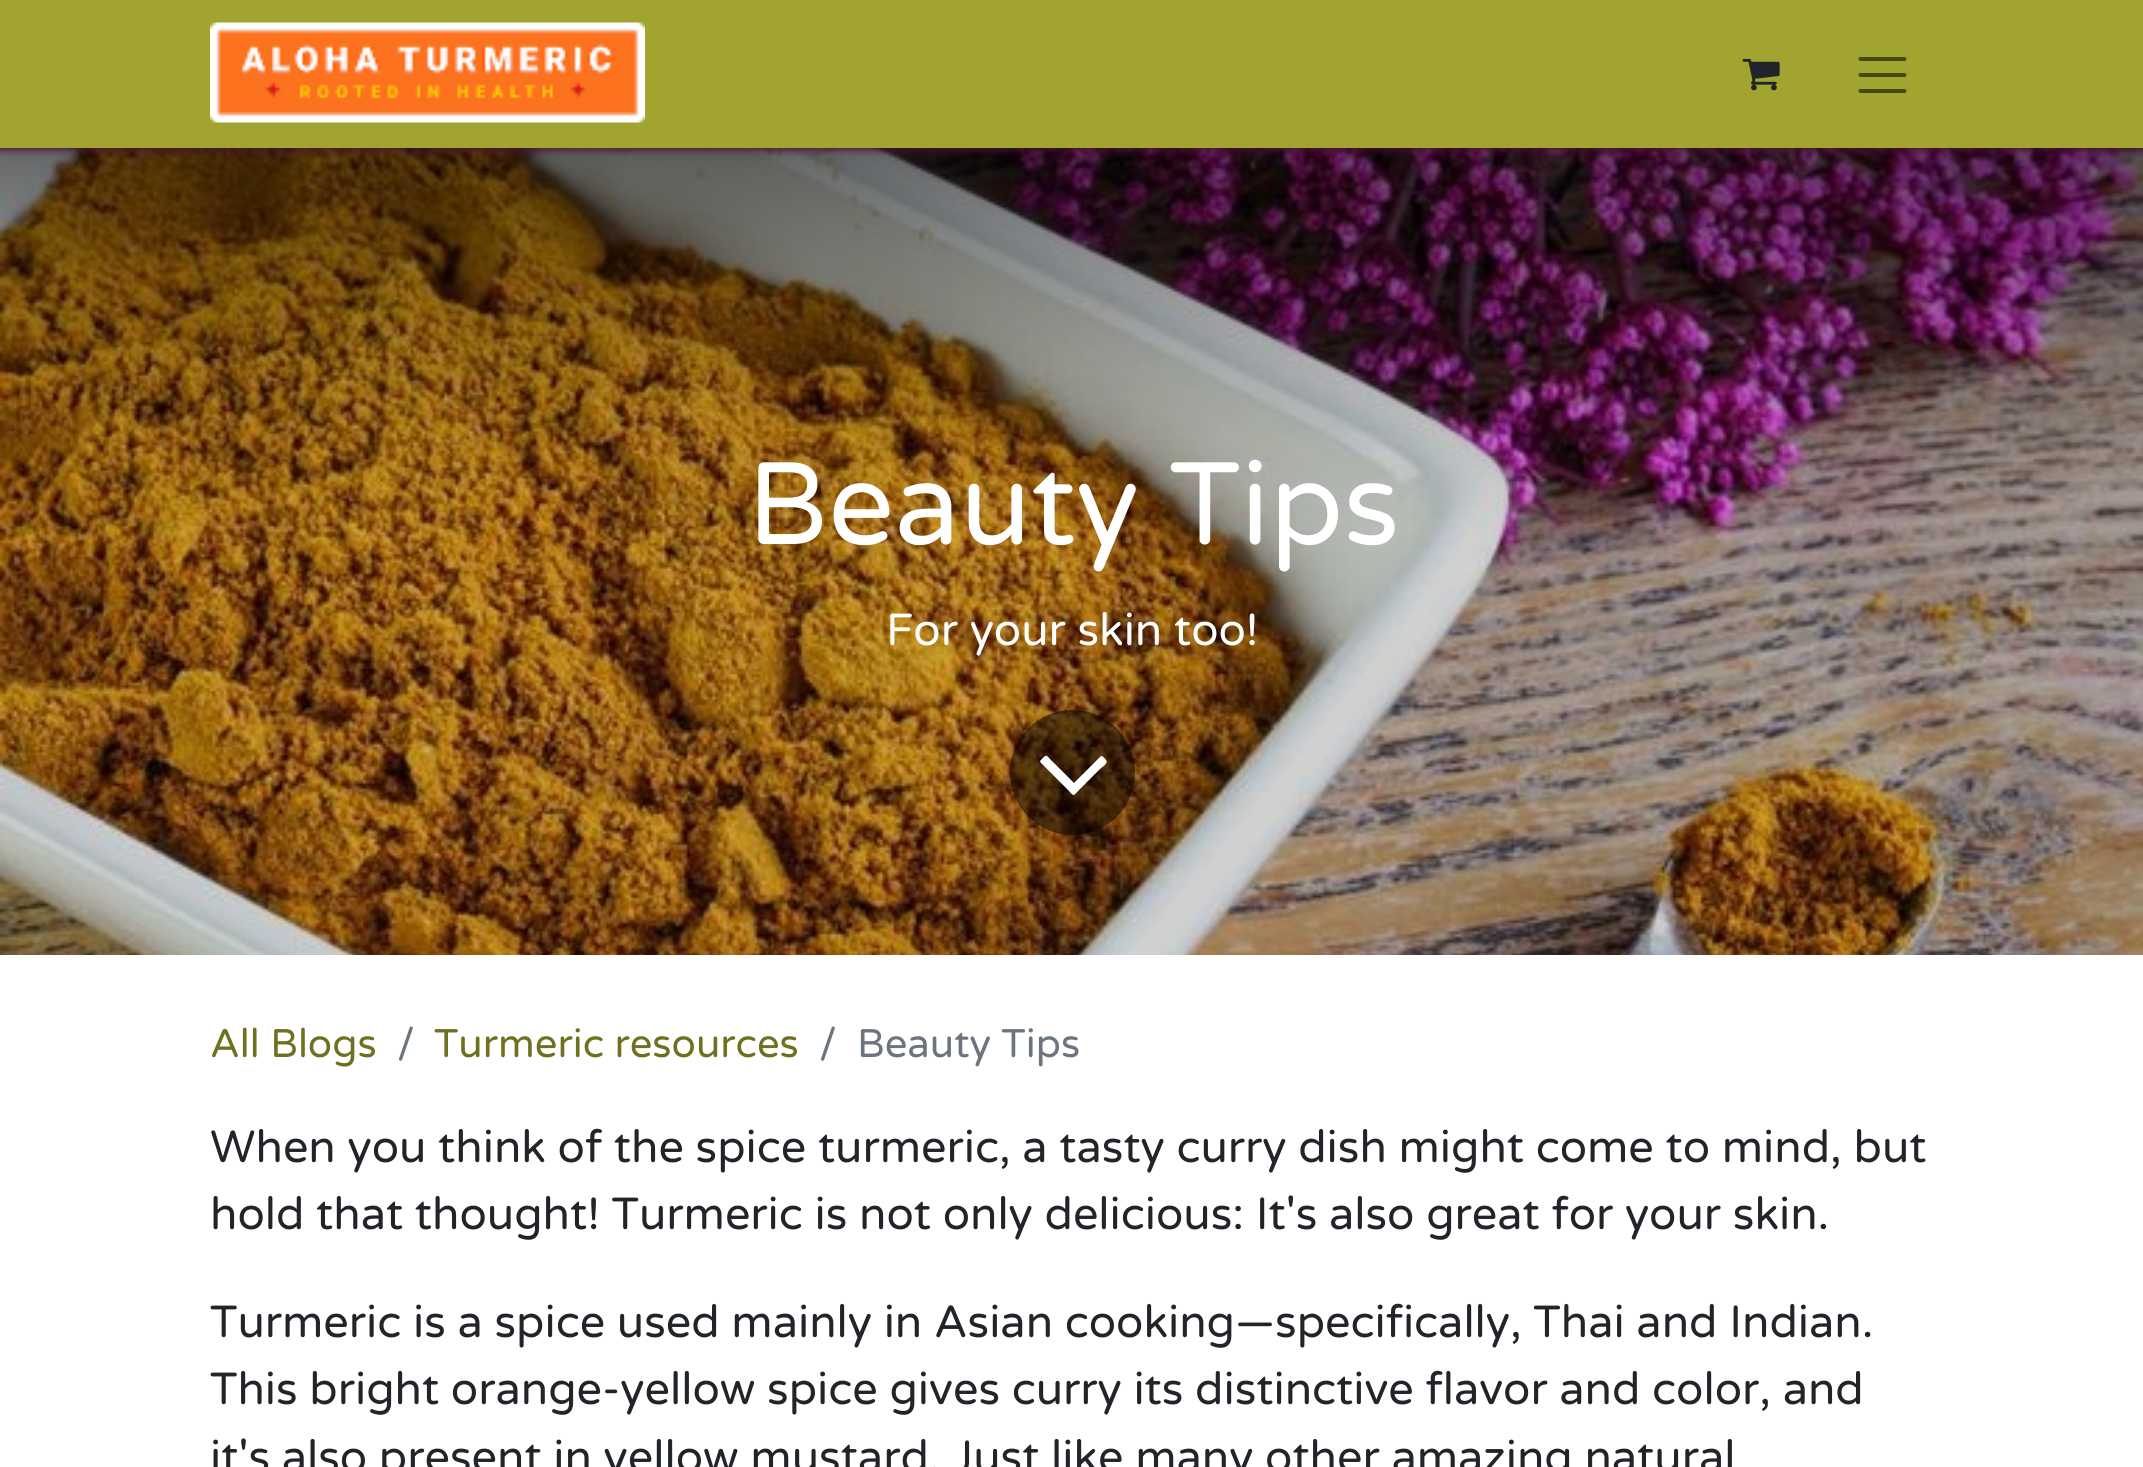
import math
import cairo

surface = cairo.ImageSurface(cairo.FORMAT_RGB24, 2143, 1467)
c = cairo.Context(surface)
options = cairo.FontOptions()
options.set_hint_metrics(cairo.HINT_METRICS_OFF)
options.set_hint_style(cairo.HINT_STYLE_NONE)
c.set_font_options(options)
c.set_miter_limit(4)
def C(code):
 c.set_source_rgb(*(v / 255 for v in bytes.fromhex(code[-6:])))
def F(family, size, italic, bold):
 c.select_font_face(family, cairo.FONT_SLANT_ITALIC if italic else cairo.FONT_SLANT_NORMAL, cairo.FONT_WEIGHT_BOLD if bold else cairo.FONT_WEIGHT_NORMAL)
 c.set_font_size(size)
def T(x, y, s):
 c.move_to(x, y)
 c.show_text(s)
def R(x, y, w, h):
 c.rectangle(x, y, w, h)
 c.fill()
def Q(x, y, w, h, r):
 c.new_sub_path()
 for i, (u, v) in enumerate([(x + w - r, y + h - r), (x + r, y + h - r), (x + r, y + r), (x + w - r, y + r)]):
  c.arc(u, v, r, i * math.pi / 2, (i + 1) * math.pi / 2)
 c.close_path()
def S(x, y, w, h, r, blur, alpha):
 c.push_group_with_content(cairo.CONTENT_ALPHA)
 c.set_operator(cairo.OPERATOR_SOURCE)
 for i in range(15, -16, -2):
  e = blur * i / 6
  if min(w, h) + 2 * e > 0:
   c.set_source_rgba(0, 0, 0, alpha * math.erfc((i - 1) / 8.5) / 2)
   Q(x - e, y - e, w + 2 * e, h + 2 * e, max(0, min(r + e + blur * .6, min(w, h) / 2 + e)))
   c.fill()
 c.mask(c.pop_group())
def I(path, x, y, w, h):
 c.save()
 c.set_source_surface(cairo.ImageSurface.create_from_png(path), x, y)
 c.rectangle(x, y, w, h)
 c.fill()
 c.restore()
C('ffffff')
c.paint()
I('3.png',0,148,2143,807)
C('4a1031')
S(0,3,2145,147,0,4,1)
C('a1a52f')
R(0,0,2143,148)
I('1.png',210,22,435,101)
I('2.png',1742,58,38,33)
c.new_path()
c.move_to(1860.5,59)
c.line_to(1904.5,59)
c.move_to(1860.5,75)
c.line_to(1904.5,75)
c.move_to(1860.5,91)
c.line_to(1904.5,91)
C('484a15')
c.set_line_width(4)
c.set_line_cap(cairo.LINE_CAP_ROUND)
c.stroke()
F('Varela Round',117,0,0)
C('ffffff')
T(747,544,'Beauty Tips')
F('Varela Round',45,0,0)
T(886,645,'For your skin too!')
c.set_source_rgba(0,0,0,0.5)
c.new_path()
c.arc(1072.5,772.5,62.5,0,2 * math.pi)
c.fill()
C('ffffff')
c.new_path()
c.move_to(1106,760)
c.curve_to(1109,763,1101,768,1101,768)
c.line_to(1080,789)
c.curve_to(1072,797,1075,797,1067,789)
c.line_to(1041,763)
c.curve_to(1039,761,1041,760,1042,759)
c.curve_to(1043,758,1045,755,1047,756)
c.line_to(1074,783)
c.line_to(1100,757)
c.curve_to(1102,754,1105,759,1106,760)
c.close_path()
c.fill()
F('Varela Round',40,0,0)
C('6f7120')
T(210,1057,'All Blogs')
C('6c757d')
T(397,1057,'/')
C('6f7120')
T(434,1057,'Turmeric resources')
C('6c757d')
T(819,1057,'/')
T(857,1057,'Beauty Tips')
F('Varela Round',45,0,0)
C('212529')
T(210,1162,'When you think of the spice turmeric, a tasty curry dish might come to mind, but')
T(210,1229,'hold that thought! Turmeric is not only delicious: It\'s also great for your skin.')
T(210,1337,'Turmeric is a spice used mainly in Asian cooking—specifically, Thai and Indian.')
T(210,1404,'This bright orange-yellow spice gives curry its distinctive flavor and color, and')
T(210,1472,'it\'s also present in yellow mustard. Just like many other amazing natural')
surface.write_to_png('o.png')
